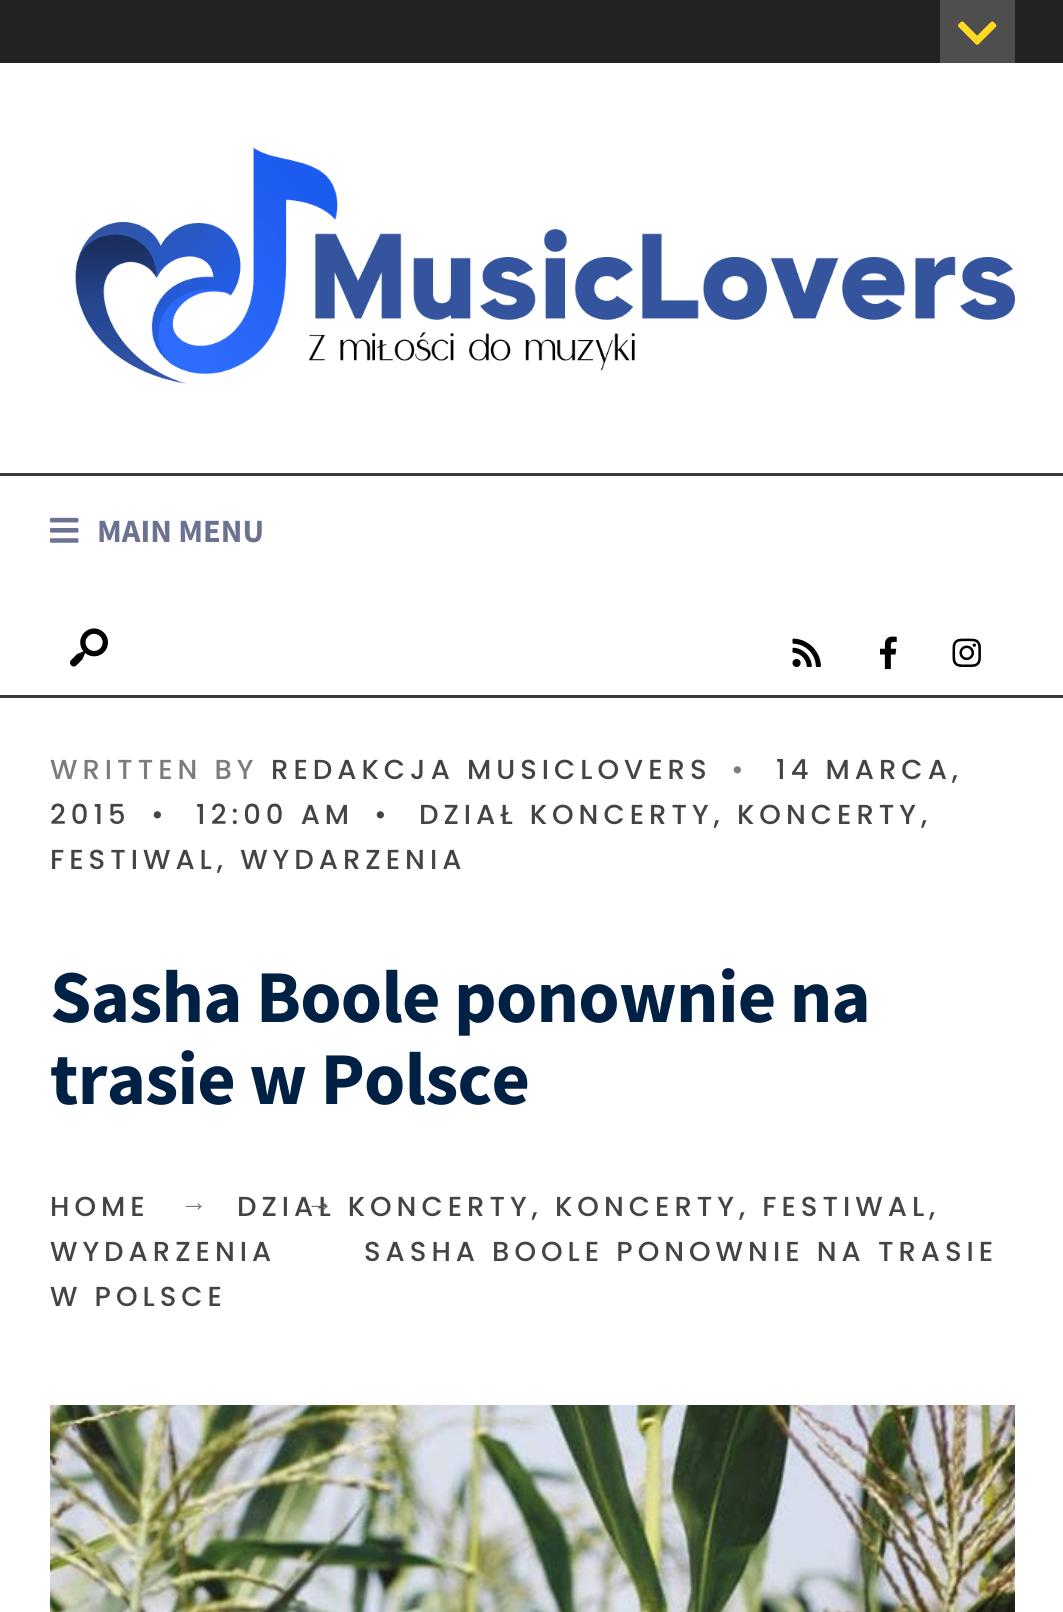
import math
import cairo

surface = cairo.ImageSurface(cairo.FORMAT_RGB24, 1063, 1612)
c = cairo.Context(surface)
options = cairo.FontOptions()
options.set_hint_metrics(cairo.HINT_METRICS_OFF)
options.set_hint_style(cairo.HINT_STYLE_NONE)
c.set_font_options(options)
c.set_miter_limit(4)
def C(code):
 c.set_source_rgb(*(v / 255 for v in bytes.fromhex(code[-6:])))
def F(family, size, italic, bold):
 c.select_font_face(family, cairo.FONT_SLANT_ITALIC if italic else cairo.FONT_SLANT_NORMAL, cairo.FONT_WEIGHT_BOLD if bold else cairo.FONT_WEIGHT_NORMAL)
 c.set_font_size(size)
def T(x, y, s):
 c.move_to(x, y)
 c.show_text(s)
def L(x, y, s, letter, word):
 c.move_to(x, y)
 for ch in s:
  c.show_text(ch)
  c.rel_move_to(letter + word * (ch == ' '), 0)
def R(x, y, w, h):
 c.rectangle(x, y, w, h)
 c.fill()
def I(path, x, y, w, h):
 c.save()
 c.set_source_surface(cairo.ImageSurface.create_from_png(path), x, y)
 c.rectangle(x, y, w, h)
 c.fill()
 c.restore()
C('ffffff')
c.paint()
C('222222')
R(0,0,1063,63)
C('4e4e4e')
R(940,0,75,63)
I('1.png',958,21,39,24)
I('2.png',75,147,940,237)
C('3a3a3a')
R(0,473,1063,3)
R(0,695,1063,3)
I('3.png',50,517,29,26)
F('Source Sans Pro',32.5,0,1)
C('6b7391')
T(97,542,'MAIN MENU')
I('4.png',70,628,38,39)
I('5.png',792,638,29,29)
I('6.png',880,636,17,34)
I('7.png',952,638,29,29)
F('Poppins Medium',27.5,0,0)
C('7c7c7c')
L(50,779,'WRITTEN BY',5,0)
C('444444')
L(271,779,'REDAKCJA MUSICLOVERS',5,0)
C('7c7c7c')
L(731,779,'•',5,0)
C('444444')
L(776,779,'14 MARCA,',5,0)
L(50,824,'2015',5,0)
L(151,824,'•',5,0)
L(196,824,'12:00 AM',5,0)
L(374,824,'•',5,0)
L(419,824,'DZIAŁ KONCERTY, KONCERTY,',5,0)
L(50,869,'FESTIWAL, WYDARZENIA',5,0)
F('Source Sans Pro',74.5,0,1)
C('002044')
L(50,1022,'Sasha Boole ponownie na',-.75,0)
L(50,1104,'trasie w Polsce',-.75,0)
F('Poppins Medium',27.5,0,0)
C('444444')
L(237,1216,'DZIAŁ KONCERTY, KONCERTY, FESTIWAL,',5,0)
F('Liberation Serif',27.5,0,0)
C('696969')
L(306,1211,'→',5,0)
F('Poppins Medium',27.5,0,0)
C('444444')
L(50,1261,'WYDARZENIA',5,0)
L(50,1216,'HOME',5,0)
F('Liberation Serif',27.5,0,0)
C('7c7c7c')
L(180,1211,'→',5,0)
F('Poppins Medium',27.5,0,0)
C('444444')
L(364,1261,'SASHA BOOLE PONOWNIE NA TRASIE',5,0)
L(50,1306,'W POLSCE',5,0)
I('8.png',50,1405,965,207)
surface.write_to_png('o.png')
